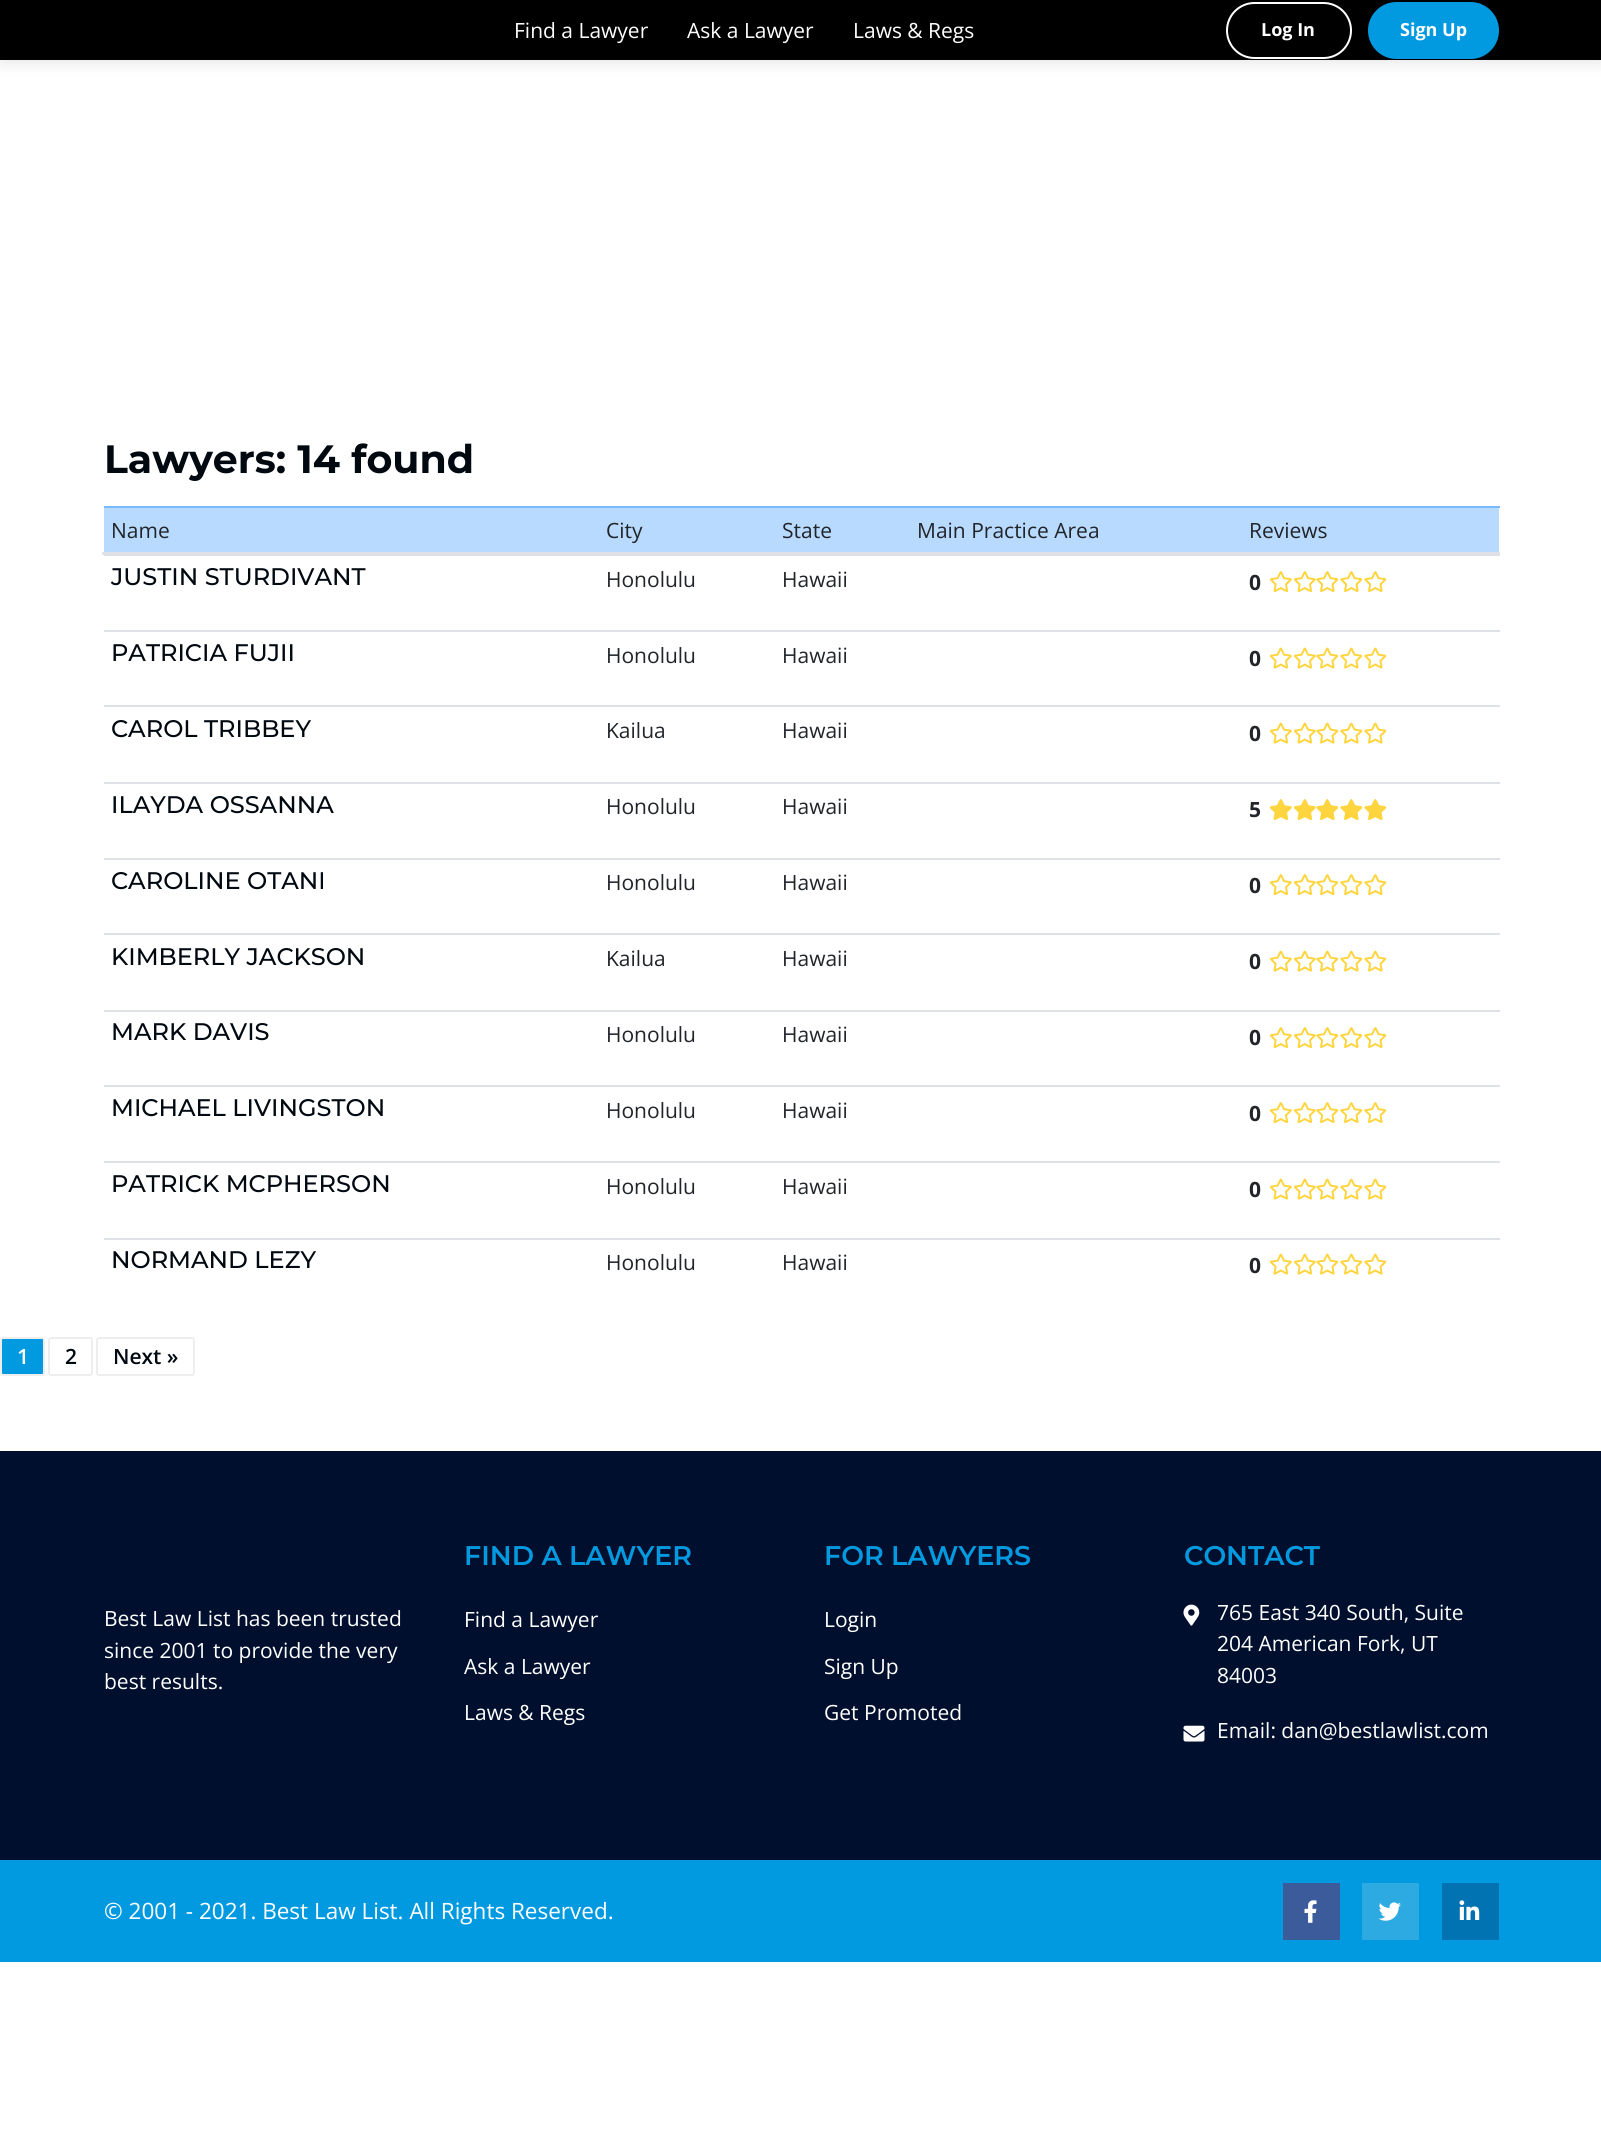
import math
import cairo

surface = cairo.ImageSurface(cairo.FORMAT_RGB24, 1601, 2149)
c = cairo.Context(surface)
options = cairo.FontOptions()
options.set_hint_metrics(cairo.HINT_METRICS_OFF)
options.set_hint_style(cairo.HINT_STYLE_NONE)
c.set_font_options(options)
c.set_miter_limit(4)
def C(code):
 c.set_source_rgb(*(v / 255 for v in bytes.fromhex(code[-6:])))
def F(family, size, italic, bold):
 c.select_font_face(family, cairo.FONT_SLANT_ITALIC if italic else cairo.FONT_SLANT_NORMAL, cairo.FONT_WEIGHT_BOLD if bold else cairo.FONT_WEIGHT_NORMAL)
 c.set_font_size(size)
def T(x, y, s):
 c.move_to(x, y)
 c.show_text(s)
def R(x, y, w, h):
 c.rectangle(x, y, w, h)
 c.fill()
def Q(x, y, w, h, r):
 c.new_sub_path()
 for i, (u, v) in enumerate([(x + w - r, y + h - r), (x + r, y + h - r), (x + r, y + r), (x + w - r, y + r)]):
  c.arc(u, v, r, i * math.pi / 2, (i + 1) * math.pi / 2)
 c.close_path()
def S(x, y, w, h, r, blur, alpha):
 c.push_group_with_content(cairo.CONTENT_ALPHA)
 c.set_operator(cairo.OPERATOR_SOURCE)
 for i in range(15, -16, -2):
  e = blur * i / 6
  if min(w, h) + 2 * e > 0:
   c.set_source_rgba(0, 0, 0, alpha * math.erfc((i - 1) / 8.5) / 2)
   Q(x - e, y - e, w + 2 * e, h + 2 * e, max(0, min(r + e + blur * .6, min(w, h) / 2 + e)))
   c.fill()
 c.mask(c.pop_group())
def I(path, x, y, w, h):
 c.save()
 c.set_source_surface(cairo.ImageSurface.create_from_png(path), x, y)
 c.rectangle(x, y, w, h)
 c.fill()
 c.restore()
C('ffffff')
c.paint()
C('000000')
S(0,3,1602,60,0,7.5,.1)
C('000000')
R(0,0,1601,60)
F('Open Sans',21,0,0)
C('ffffff')
T(514,38,'Find a Lawyer')
T(687,38,'Ask a Lawyer')
T(853,38,'Laws & Regs')
Q(1227,3,124,55,27.5)
c.stroke()
F('Open Sans',18,0,1)
T(1261,36,'Log In')
C('019ae0')
Q(1369,3,129,55,27.5)
c.fill_preserve()
c.stroke()
C('ffffff')
T(1400,36,'Sign Up')
F('Montserrat',39.5,0,1)
C('000810')
T(104,473,'Lawyers: 14 found')
C('b8daff')
R(104,508,1395,44)
F('Open Sans',21,0,0)
C('212529')
T(111,538,'Name')
T(606,538,'City')
T(782,538,'State')
T(917,538,'Main Practice Area')
C('7abaff')
R(104,506,1396,2)
C('dee2e6')
R(102,552,1398,3)
C('212529')
T(1249,538,'Reviews')
F('Montserrat Medium',24,0,0)
C('000810')
T(111,585,'JUSTIN STURDIVANT')
F('Open Sans',21,0,0)
C('212529')
T(606,587,'Honolulu')
T(782,587,'Hawaii')
C('dee2e6')
R(104,555,1396,1)
F('Open Sans',21,0,1)
C('212529')
T(1249,590,'0')
I('1.png',1269,571,23,22)
I('1.png',1293,571,23,22)
I('2.png',1316,571,23,22)
I('2.png',1340,571,23,22)
I('2.png',1364,571,23,22)
F('Montserrat Medium',24,0,0)
C('000810')
T(111,661,'PATRICIA FUJII')
F('Open Sans',21,0,0)
C('212529')
T(606,663,'Honolulu')
T(782,663,'Hawaii')
C('dee2e6')
R(104,630,1396,2)
F('Open Sans',21,0,1)
C('212529')
T(1249,666,'0')
I('3.png',1269,647,23,22)
I('3.png',1293,647,23,22)
I('4.png',1316,647,23,22)
I('4.png',1340,647,23,22)
I('4.png',1364,647,23,22)
F('Montserrat Medium',24,0,0)
C('000810')
T(111,737,'CAROL TRIBBEY')
F('Open Sans',21,0,0)
C('212529')
T(606,738,'Kailua')
T(782,738,'Hawaii')
C('dee2e6')
R(104,705,1396,2)
F('Open Sans',21,0,1)
C('212529')
T(1249,741,'0')
I('3.png',1269,722,23,22)
I('3.png',1293,722,23,22)
I('4.png',1316,722,23,22)
I('4.png',1340,722,23,22)
I('4.png',1364,722,23,22)
F('Montserrat Medium',24,0,0)
C('000810')
T(111,813,'ILAYDA OSSANNA')
F('Open Sans',21,0,0)
C('212529')
T(606,814,'Honolulu')
T(782,814,'Hawaii')
C('dee2e6')
R(104,782,1396,2)
F('Open Sans',21,0,1)
C('212529')
T(1249,817,'5')
I('5.png',1269,799,23,22)
I('5.png',1293,799,23,22)
I('6.png',1316,799,23,22)
I('6.png',1340,799,23,22)
I('6.png',1364,799,23,22)
F('Montserrat Medium',24,0,0)
C('000810')
T(111,889,'CAROLINE OTANI')
F('Open Sans',21,0,0)
C('212529')
T(606,890,'Honolulu')
T(782,890,'Hawaii')
C('dee2e6')
R(104,858,1396,2)
F('Open Sans',21,0,1)
C('212529')
T(1249,893,'0')
I('1.png',1269,874,23,22)
I('1.png',1293,874,23,22)
I('2.png',1316,874,23,22)
I('2.png',1340,874,23,22)
I('2.png',1364,874,23,22)
F('Montserrat Medium',24,0,0)
C('000810')
T(111,965,'KIMBERLY JACKSON')
F('Open Sans',21,0,0)
C('212529')
T(606,966,'Kailua')
T(782,966,'Hawaii')
C('dee2e6')
R(104,933,1396,2)
F('Open Sans',21,0,1)
C('212529')
T(1249,969,'0')
I('3.png',1269,950,23,22)
I('3.png',1293,950,23,22)
I('4.png',1316,950,23,22)
I('4.png',1340,950,23,22)
I('4.png',1364,950,23,22)
F('Montserrat Medium',24,0,0)
C('000810')
T(111,1040,'MARK DAVIS')
F('Open Sans',21,0,0)
C('212529')
T(606,1042,'Honolulu')
T(782,1042,'Hawaii')
C('dee2e6')
R(104,1010,1396,2)
F('Open Sans',21,0,1)
C('212529')
T(1249,1045,'0')
I('1.png',1269,1027,23,22)
I('1.png',1293,1027,23,22)
I('2.png',1316,1027,23,22)
I('2.png',1340,1027,23,22)
I('2.png',1364,1027,23,22)
F('Montserrat Medium',24,0,0)
C('000810')
T(111,1116,'MICHAEL LIVINGSTON')
F('Open Sans',21,0,0)
C('212529')
T(606,1118,'Honolulu')
T(782,1118,'Hawaii')
C('dee2e6')
R(104,1085,1396,2)
F('Open Sans',21,0,1)
C('212529')
T(1249,1121,'0')
I('1.png',1269,1102,23,22)
I('1.png',1293,1102,23,22)
I('2.png',1316,1102,23,22)
I('2.png',1340,1102,23,22)
I('2.png',1364,1102,23,22)
F('Montserrat Medium',24,0,0)
C('000810')
T(111,1192,'PATRICK MCPHERSON')
F('Open Sans',21,0,0)
C('212529')
T(606,1194,'Honolulu')
T(782,1194,'Hawaii')
C('dee2e6')
R(104,1161,1396,2)
F('Open Sans',21,0,1)
C('212529')
T(1249,1197,'0')
I('3.png',1269,1178,23,22)
I('3.png',1293,1178,23,22)
I('4.png',1316,1178,23,22)
I('4.png',1340,1178,23,22)
I('4.png',1364,1178,23,22)
F('Montserrat Medium',24,0,0)
C('000810')
T(111,1268,'NORMAND LEZY')
F('Open Sans',21,0,0)
C('212529')
T(606,1270,'Honolulu')
T(782,1270,'Hawaii')
C('dee2e6')
R(104,1238,1396,2)
F('Open Sans',21,0,1)
C('212529')
T(1249,1273,'0')
I('3.png',1269,1253,23,22)
I('3.png',1293,1253,23,22)
I('4.png',1316,1253,23,22)
I('4.png',1340,1253,23,22)
I('4.png',1364,1253,23,22)
C('019ae0')
Q(1,1338,43,37,2)
c.fill_preserve()
C('eeeeee')
c.stroke()
F('Open Sans SemiBold',21,0,0)
C('ffffff')
T(17,1364,'1')
Q(49,1338,43,37,2)
C('eeeeee')
c.stroke()
C('000810')
T(65,1364,'2')
Q(97,1338,97,37,2)
C('eeeeee')
c.stroke()
C('000810')
T(113,1364,'Next »')
C('010f2e')
R(0,1451,1601,409)
F('Open Sans',21,0,0)
C('ffffff')
T(104,1626,'Best Law List has been trusted')
T(104,1658,'since 2001 to provide the very')
T(104,1689,'best results.')
F('Montserrat SemiBold',27,0,0)
C('019ae0')
T(464,1565,'FIND A LAWYER')
F('Open Sans',21,0,0)
C('ffffff')
T(464,1627,'Find a Lawyer')
T(464,1674,'Ask a Lawyer')
T(464,1720,'Laws & Regs')
F('Montserrat SemiBold',27,0,0)
C('019ae0')
T(824,1565,'FOR LAWYERS')
F('Open Sans',21,0,0)
C('ffffff')
T(824,1627,'Login')
T(824,1674,'Sign Up')
T(824,1720,'Get Promoted')
F('Montserrat SemiBold',27,0,0)
C('019ae0')
T(1184,1565,'CONTACT')
I('7.png',1183,1604,17,22)
F('Open Sans',21,0,0)
C('ffffff')
T(1217,1620,'765 East 340 South, Suite')
T(1217,1651,'204 American Fork, UT')
T(1217,1683,'84003')
I('8.png',1183,1725,22,17)
T(1217,1738,'Email: dan@bestlawlist.com')
C('019ae0')
R(0,1860,1601,102)
F('Open Sans',22.5,0,0)
C('ffffff')
T(104,1919,'© 2001 - 2021. Best Law List. All Rights Reserved.')
C('3c5b9b')
R(1283,1883,57,57)
I('9.png',1304,1900,13,23)
C('2daae1')
R(1362,1883,57,57)
I('10.png',1378,1902,23,19)
C('0173b2')
R(1442,1883,57,57)
I('11.png',1459,1900,21,20)
surface.write_to_png('o.png')
